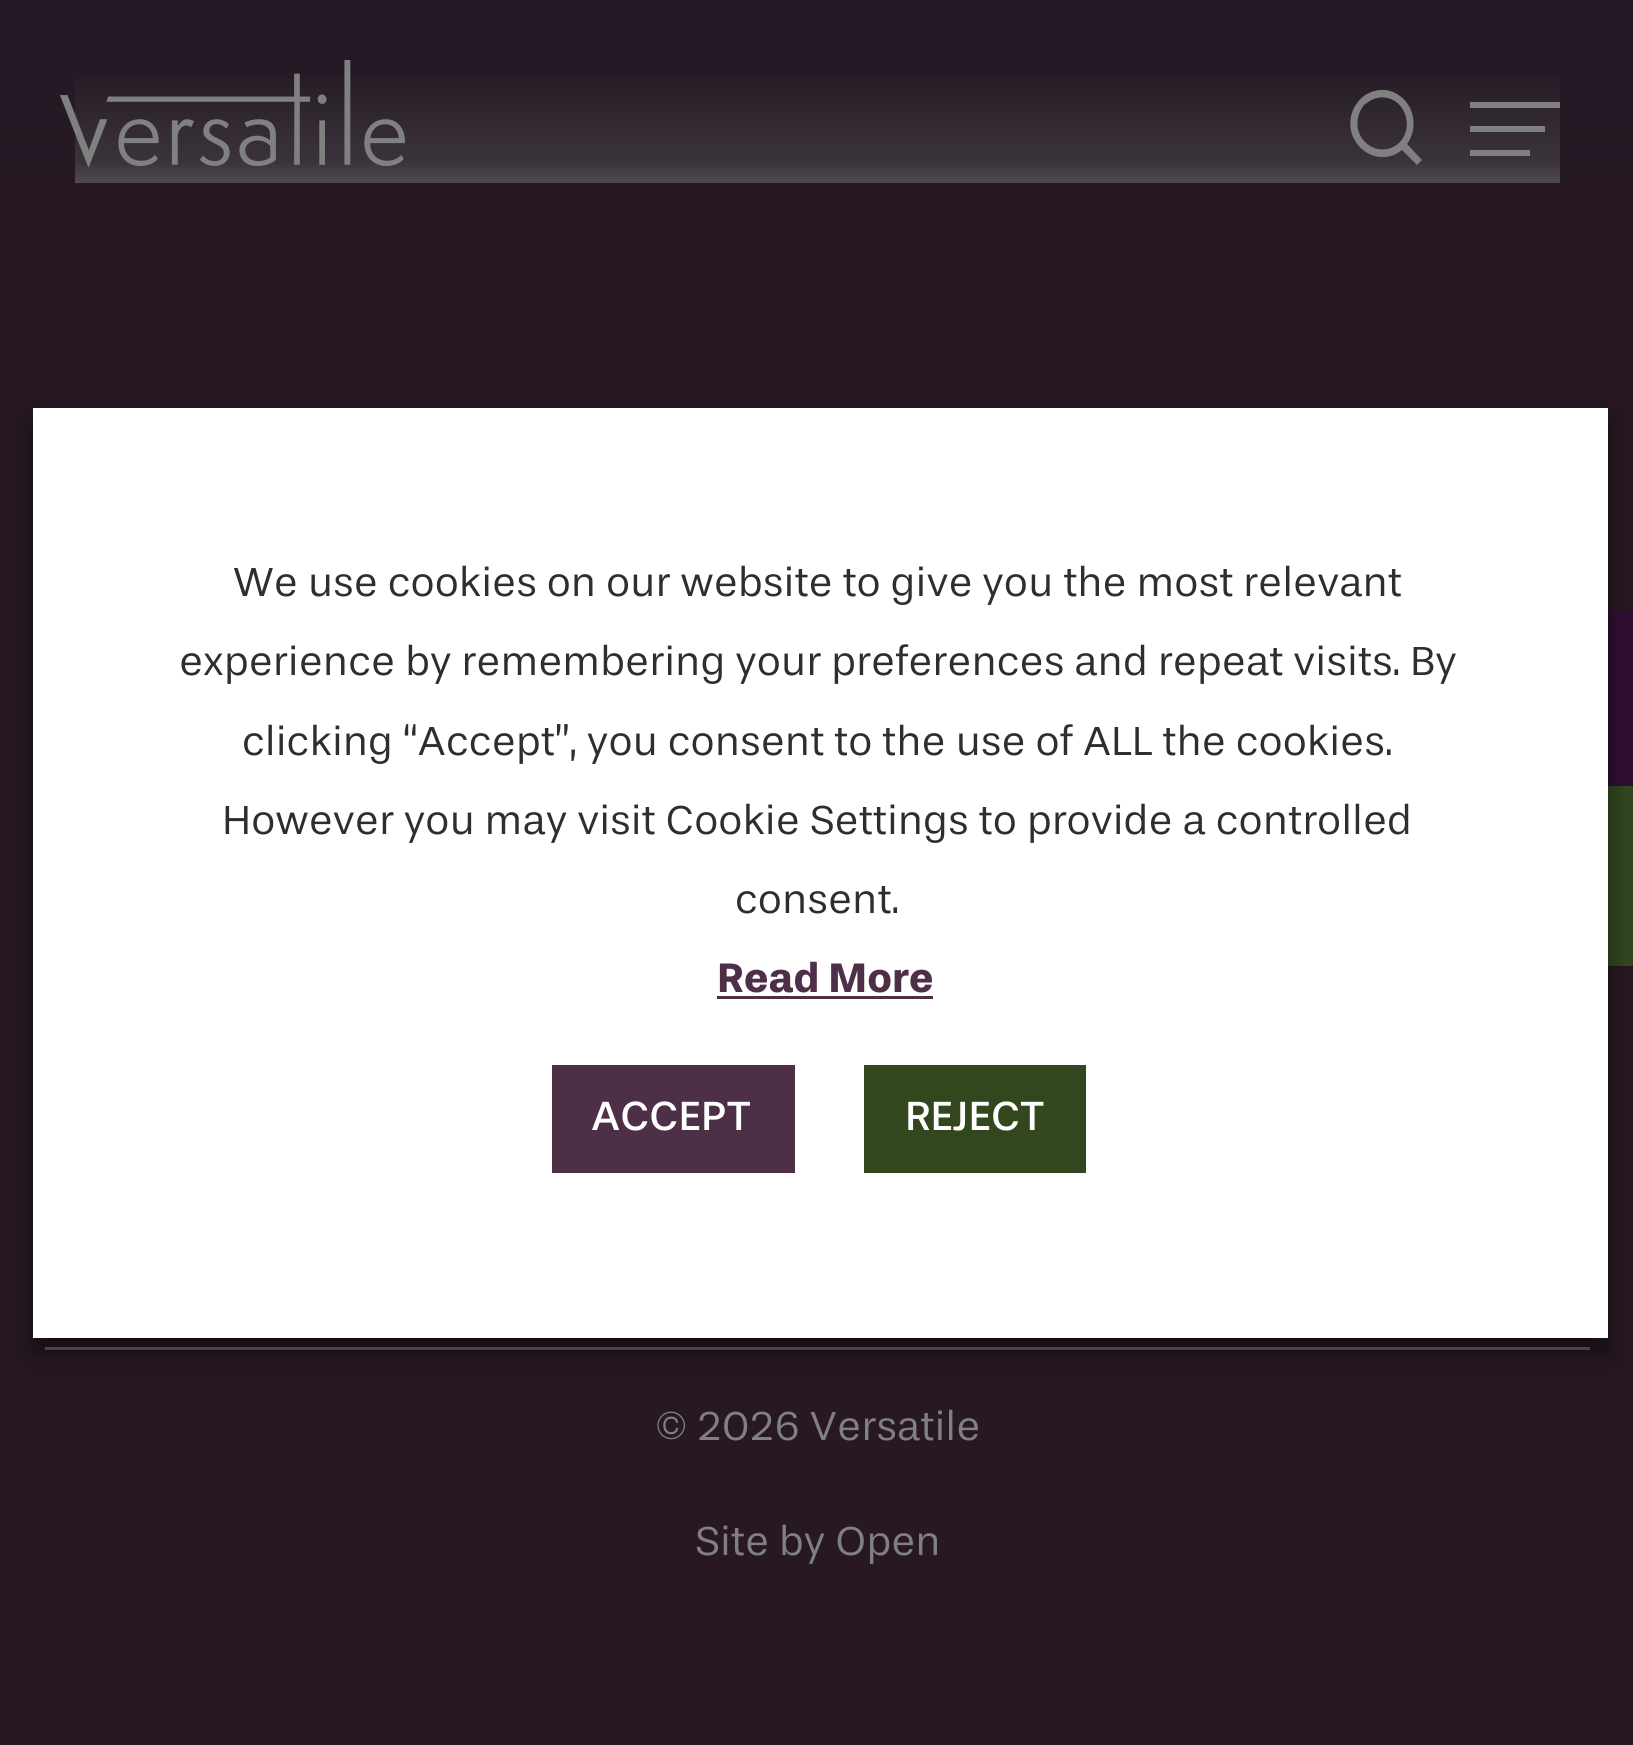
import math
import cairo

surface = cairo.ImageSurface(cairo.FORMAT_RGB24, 1633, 1745)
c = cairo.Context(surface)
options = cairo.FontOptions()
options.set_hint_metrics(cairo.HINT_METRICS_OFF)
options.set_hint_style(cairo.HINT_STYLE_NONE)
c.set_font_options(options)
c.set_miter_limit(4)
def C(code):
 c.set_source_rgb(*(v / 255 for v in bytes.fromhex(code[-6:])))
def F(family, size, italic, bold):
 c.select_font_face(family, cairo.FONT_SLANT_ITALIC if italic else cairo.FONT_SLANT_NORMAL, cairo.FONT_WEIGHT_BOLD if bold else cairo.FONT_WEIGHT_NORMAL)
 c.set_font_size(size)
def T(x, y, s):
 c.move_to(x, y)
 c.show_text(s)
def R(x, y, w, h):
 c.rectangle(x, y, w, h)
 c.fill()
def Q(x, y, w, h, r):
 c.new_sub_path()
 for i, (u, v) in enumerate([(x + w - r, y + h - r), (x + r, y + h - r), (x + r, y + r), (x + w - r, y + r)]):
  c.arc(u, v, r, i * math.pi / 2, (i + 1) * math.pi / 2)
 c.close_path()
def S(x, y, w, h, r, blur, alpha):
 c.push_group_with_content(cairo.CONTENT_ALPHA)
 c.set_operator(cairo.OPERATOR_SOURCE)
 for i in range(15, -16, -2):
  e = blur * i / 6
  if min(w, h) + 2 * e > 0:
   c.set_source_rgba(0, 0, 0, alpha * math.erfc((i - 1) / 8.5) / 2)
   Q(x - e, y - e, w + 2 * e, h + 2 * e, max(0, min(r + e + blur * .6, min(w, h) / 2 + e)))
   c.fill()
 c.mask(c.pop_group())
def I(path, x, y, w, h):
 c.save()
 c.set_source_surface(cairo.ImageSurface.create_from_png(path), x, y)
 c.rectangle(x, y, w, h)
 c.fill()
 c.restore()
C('271824')
c.paint()
C('808080')
R(75,78,1485,105)
gradient = cairo.LinearGradient(818,0,818,228)
gradient.add_color_stop_rgba(.29,0.141,0.098,0.141,1)
gradient.add_color_stop_rgba(.71,0.141,0.098,0.141,.75)
gradient.add_color_stop_rgba(1,0.141,0.098,0.141,0)
c.set_source(gradient)
R(0,0,1633,183)
I('1.png',60,60,345,108)
C('808080')
c.new_path()
c.move_to(1407,144)
c.line_to(1422,160)
c.line_to(1417,165)
c.line_to(1402,150)
c.curve_to(1376,171,1340,142,1353,110)
c.curve_to(1356,103,1362,96,1369,93)
c.curve_to(1379,88,1391,89,1400,96)
c.curve_to(1415,107,1418,129,1407,144)
c.close_path()
c.move_to(1400,142)
c.curve_to(1416,124,1402,93,1377,98)
c.curve_to(1372,99,1368,102,1364,105)
c.curve_to(1361,109,1359,113,1358,118)
c.curve_to(1353,143,1382,160,1400,142)
c.close_path()
c.fill()
R(1470,102,90,6)
R(1470,126,75,6)
R(1470,150,60,6)
C('320f34')
R(1608,612,25,174)
C('33481f')
R(1608,786,25,180)
C('666666')
R(45,1347,1545,3)
C('000000')
S(33,423,1575,930,0,15,.5)
C('ffffff')
R(33,408,1575,930)
F('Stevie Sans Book',42,0,0)
C('2e2e2e')
T(233,596,'We use cookies on our website to give you the most relevant')
T(179,675,'experience by remembering your preferences and repeat visits. By')
T(242,755,'clicking “Accept”, you consent to the use of ALL the cookies.')
T(222,834,'However you may visit Cookie Settings to provide a controlled')
T(735,913,'consent.')
F('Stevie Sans',42,0,1)
C('4d2f48')
T(717,992,'Read More')
R(717,996,216,3)
R(552,1065,243,108)
F('Stevie Sans SemiBold',42,0,0)
C('ffffff')
T(591,1130,'ACCEPT')
C('33471f')
R(864,1065,222,108)
C('ffffff')
T(905,1130,'REJECT')
F('Stevie Sans Book',42,0,0)
C('808080')
T(655,1440,'© 2026 Versatile')
T(695,1555,'Site by Open')
surface.write_to_png('o.png')
